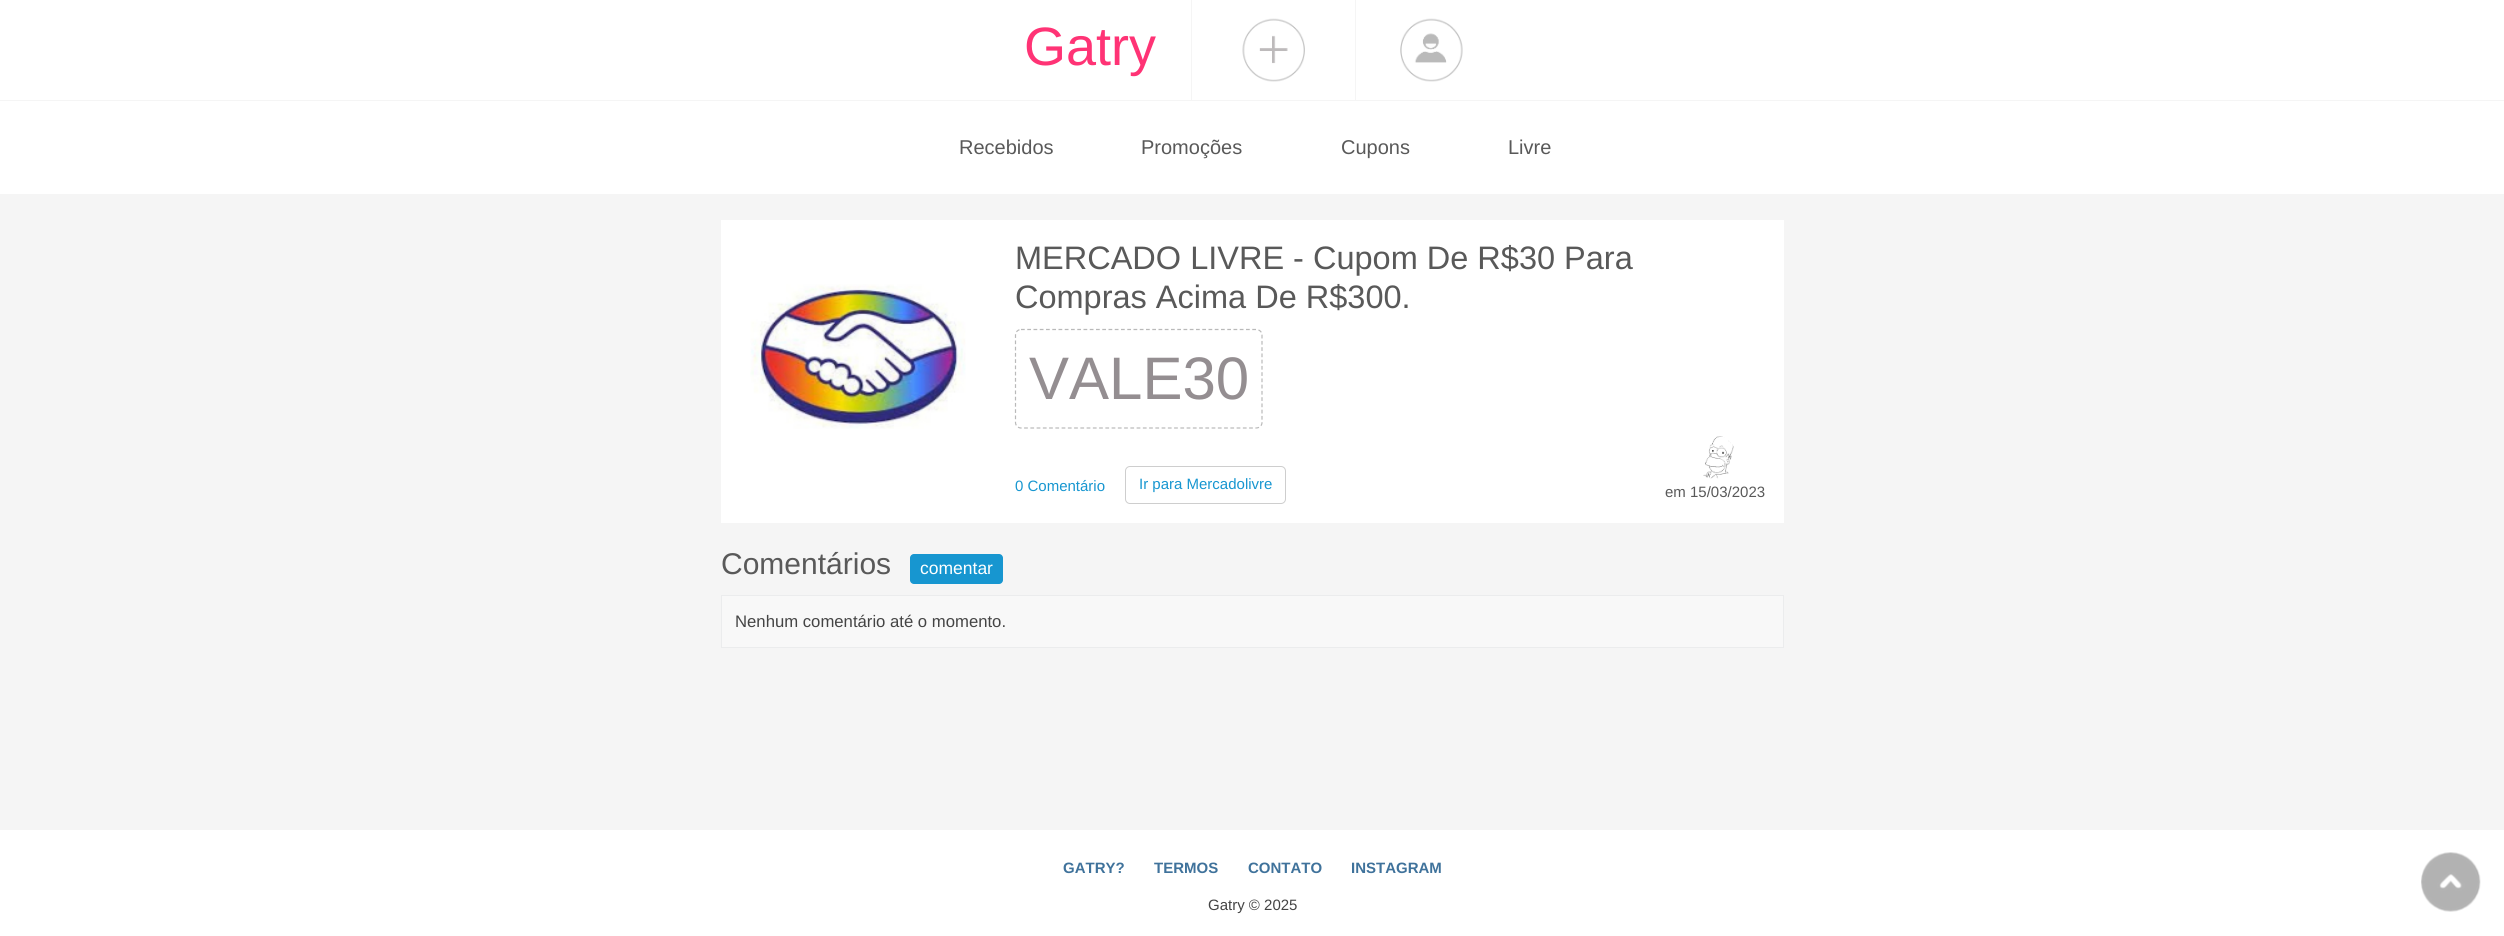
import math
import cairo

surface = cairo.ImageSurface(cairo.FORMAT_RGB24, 2504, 936)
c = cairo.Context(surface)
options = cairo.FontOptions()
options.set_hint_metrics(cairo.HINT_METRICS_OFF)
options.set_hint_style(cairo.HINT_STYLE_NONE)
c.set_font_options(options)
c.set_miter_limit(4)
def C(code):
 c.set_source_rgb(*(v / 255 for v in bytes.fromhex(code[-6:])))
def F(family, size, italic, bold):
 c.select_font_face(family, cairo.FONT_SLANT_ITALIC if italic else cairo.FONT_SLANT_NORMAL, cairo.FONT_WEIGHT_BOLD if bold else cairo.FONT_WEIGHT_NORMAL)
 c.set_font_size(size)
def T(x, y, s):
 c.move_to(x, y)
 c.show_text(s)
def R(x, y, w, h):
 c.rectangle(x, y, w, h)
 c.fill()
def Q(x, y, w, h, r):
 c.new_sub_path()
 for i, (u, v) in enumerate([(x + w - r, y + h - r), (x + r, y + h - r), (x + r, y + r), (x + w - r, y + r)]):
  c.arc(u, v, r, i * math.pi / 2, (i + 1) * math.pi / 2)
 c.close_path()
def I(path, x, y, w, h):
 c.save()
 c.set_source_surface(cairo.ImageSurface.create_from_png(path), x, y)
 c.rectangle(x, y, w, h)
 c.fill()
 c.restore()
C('f5f5f5')
c.paint()
C('ffffff')
R(0,0,2504,194)
C('f5f5f5')
R(0,100,2504,1)
F('Liberation Sans',54,0,0)
C('ff3375')
T(1024,65,'Gatry')
C('f5f5f5')
R(1355,0,1,100)
R(1191,0,1,100)
I('1.png',1242,18,63,64)
I('2.png',1400,18,63,64)
F('Liberation Sans',20,0,0)
C('595959')
T(959,154,'Recebidos')
T(1141,154,'Promoções')
T(1341,154,'Cupons')
T(1508,154,'Livre')
C('ffffff')
R(721,220,1063,303)
I('3.png',750,284,216,145)
F('Liberation Sans',32.5,0,0)
C('595959')
T(1015,269,'MERCADO LIVRE - Cupom De R$30 Para')
T(1015,308,'Compras Acima De R$300.')
c.new_path()
c.move_to(1021,329.5)
c.line_to(1256,329.5)
c.curve_to(1259.5,329.5,1262,332,1262,335)
c.line_to(1262,422.5)
c.curve_to(1262,425.5,1259.5,428,1256,428)
c.line_to(1021,428)
c.curve_to(1018,428,1015.5,425.5,1015.5,422.5)
c.line_to(1015.5,335)
c.curve_to(1015.5,332,1018,329.5,1021,329.5)
c.close_path()
C('b9b9b9')
c.set_line_width(1.2)
c.set_dash([3.75,2.5])
c.stroke()
F('Liberation Sans',60,0,0)
C('948e91')
T(1029,399,'VALE30')
F('Liberation Sans',15,0,0)
C('1796d0')
T(1015,491,'0 Comentário')
Q(1125.5,466.5,160,37,4.5)
C('cecece')
c.set_line_width(1)
c.set_dash([])
c.stroke()
C('1796d0')
T(1139,489,'Ir para Mercadolivre')
I('4.png',1703,436,31,43)
C('595959')
T(1665,497,'em 15/03/2023')
F('Liberation Sans',30,0,0)
T(721,574,'Comentários')
C('1796d0')
Q(910,554,93,30,4)
c.fill()
F('Liberation Sans',17.5,0,0)
C('ffffff')
T(920,574,'comentar')
C('f8f8f8')
c.rectangle(721.5,595.5,1062,52)
c.fill_preserve()
C('ebeced')
c.stroke()
F('Liberation Sans',16.7,0,0)
C('444444')
T(735,627,'Nenhum comentário até o momento.')
C('ffffff')
R(0,830,2504,106)
F('Liberation Sans',15,0,1)
C('3f729b')
T(1063,873,'GATRY?')
T(1154,873,'TERMOS')
T(1248,873,'CONTATO')
T(1351,873,'INSTAGRAM')
F('Liberation Sans',15,0,0)
C('444444')
T(1208,910,'Gatry © 2025')
I('5.png',2421,852,60,60)
surface.write_to_png('o.png')
